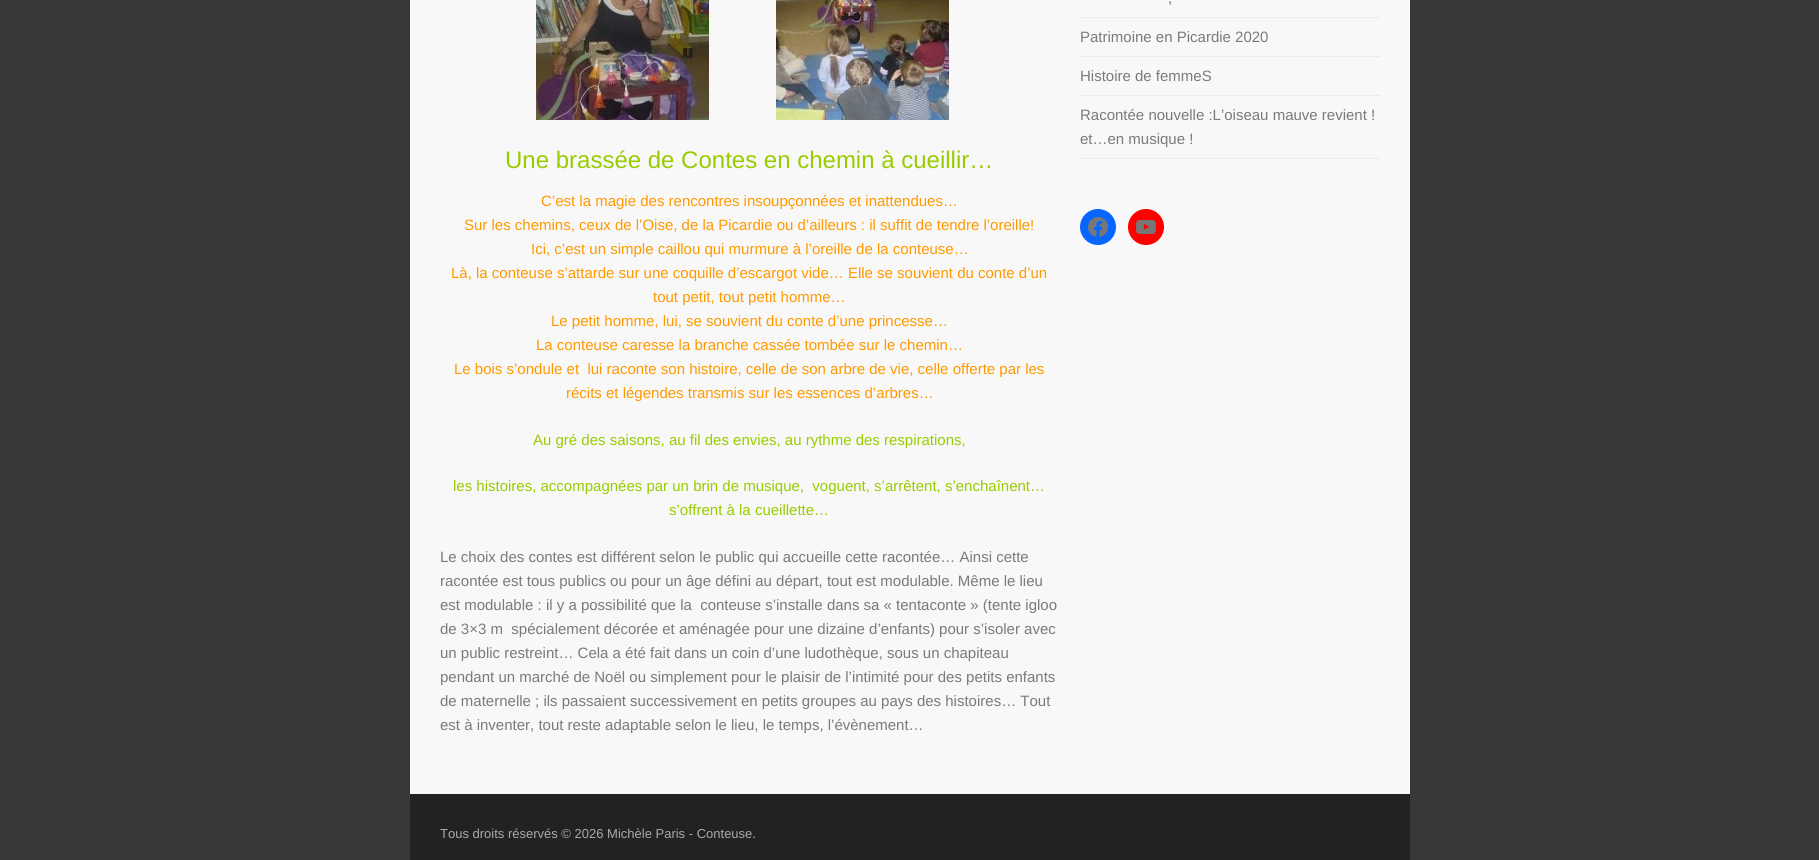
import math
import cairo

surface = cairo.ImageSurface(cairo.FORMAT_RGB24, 1819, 860)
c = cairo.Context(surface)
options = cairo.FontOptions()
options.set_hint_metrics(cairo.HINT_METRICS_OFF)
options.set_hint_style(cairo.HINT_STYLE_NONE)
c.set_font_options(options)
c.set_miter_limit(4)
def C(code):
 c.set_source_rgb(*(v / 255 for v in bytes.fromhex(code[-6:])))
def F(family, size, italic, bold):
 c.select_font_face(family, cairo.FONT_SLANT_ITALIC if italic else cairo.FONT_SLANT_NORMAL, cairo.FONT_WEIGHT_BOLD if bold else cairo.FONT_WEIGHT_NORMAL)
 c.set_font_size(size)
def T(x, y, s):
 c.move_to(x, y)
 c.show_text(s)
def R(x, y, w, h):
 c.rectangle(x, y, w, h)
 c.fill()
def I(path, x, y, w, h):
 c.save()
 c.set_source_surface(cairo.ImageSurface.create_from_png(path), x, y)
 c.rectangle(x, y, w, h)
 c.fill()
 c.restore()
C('383838')
c.paint()
C('f8f8f8')
R(410,0,1000,794)
c.new_path()
c.move_to(1080,17.5)
c.line_to(1380,17.5)
C('dfdfdf')
c.set_line_width(1)
c.set_dash([1,1])
c.stroke()
F('Liberation Sans',15,0,0)
C('7a7a7a')
T(1168,3,',')
c.new_path()
c.move_to(1080,56.5)
c.line_to(1380,56.5)
C('dfdfdf')
c.stroke()
C('7a7a7a')
T(1080,42,'Patrimoine en Picardie 2020')
c.new_path()
c.move_to(1080,95.5)
c.line_to(1380,95.5)
C('dfdfdf')
c.stroke()
C('7a7a7a')
T(1080,81,'Histoire de femmeS')
c.new_path()
c.move_to(1080,158.5)
c.line_to(1380,158.5)
C('dfdfdf')
c.stroke()
C('7a7a7a')
T(1080,120,'Racontée nouvelle :L’oiseau mauve revient !')
T(1080,144,'et…en musique !')
C('0866ff')
c.new_path()
c.arc(1098,227,18,0,2 * math.pi)
c.fill()
I('1.png',1088,217,20,20)
C('ff0000')
c.arc(1146,227,18,0,2 * math.pi)
c.fill()
I('2.png',1136,220,20,14)
I('3.png',536,0,173,120)
I('4.png',776,0,173,120)
F('Liberation Sans',24,0,0)
C('99cc00')
T(505,168,'Une brassée de Contes en chemin à cueillir…')
F('Liberation Sans',15,0,0)
C('ff9900')
T(541,206,'C’est la magie des rencontres insoupçonnées et inattendues…')
T(464,230,'Sur les chemins, ceux de l’Oise, de la Picardie ou d’ailleurs : il suffit de tendre l’oreille!')
T(531,254,'Ici, c’est un simple caillou qui murmure à l’oreille de la conteuse…')
T(451,278,'Là, la conteuse s’attarde sur une coquille d’escargot vide… Elle se souvient du conte d’un')
T(653,302,'tout petit, tout petit homme…')
T(551,326,'Le petit homme, lui, se souvient du conte d’une princesse…')
T(536,350,'La conteuse caresse la branche cassée tombée sur le chemin…')
T(454,374,'Le bois s’ondule et  lui raconte son histoire, celle de son arbre de vie, celle offerte par les')
T(566,398,'récits et légendes transmis sur les essences d’arbres…')
C('99cc00')
T(533,445,'Au gré des saisons, au fil des envies, au rythme des respirations,')
T(453,491,'les histoires, accompagnées par un brin de musique,  voguent, s’arrêtent, s’enchaînent…')
T(669,515,'s’offrent à la cueillette…')
C('7a7a7a')
T(440,562,'Le choix des contes est différent selon le public qui accueille cette racontée… Ainsi cette')
T(440,586,'racontée est tous publics ou pour un âge défini au départ, tout est modulable. Même le lieu')
T(440,610,'est modulable : il y a possibilité que la  conteuse s’installe dans sa « tentaconte » (tente igloo')
T(440,634,'de 3×3 m  spécialement décorée et aménagée pour une dizaine d’enfants) pour s’isoler avec')
T(440,658,'un public restreint… Cela a été fait dans un coin d’une ludothèque, sous un chapiteau')
T(440,682,'pendant un marché de Noël ou simplement pour le plaisir de l’intimité pour des petits enfants')
T(440,706,'de maternelle ; ils passaient successivement en petits groupes au pays des histoires… Tout')
T(440,730,'est à inventer, tout reste adaptable selon le lieu, le temps, l’évènement…')
C('222222')
R(410,794,1000,66)
F('Liberation Sans',13,0,0)
C('aaaaaa')
T(440,838,'Tous droits réservés © 2026 Michèle Paris - Conteuse.')
surface.write_to_png('o.png')
